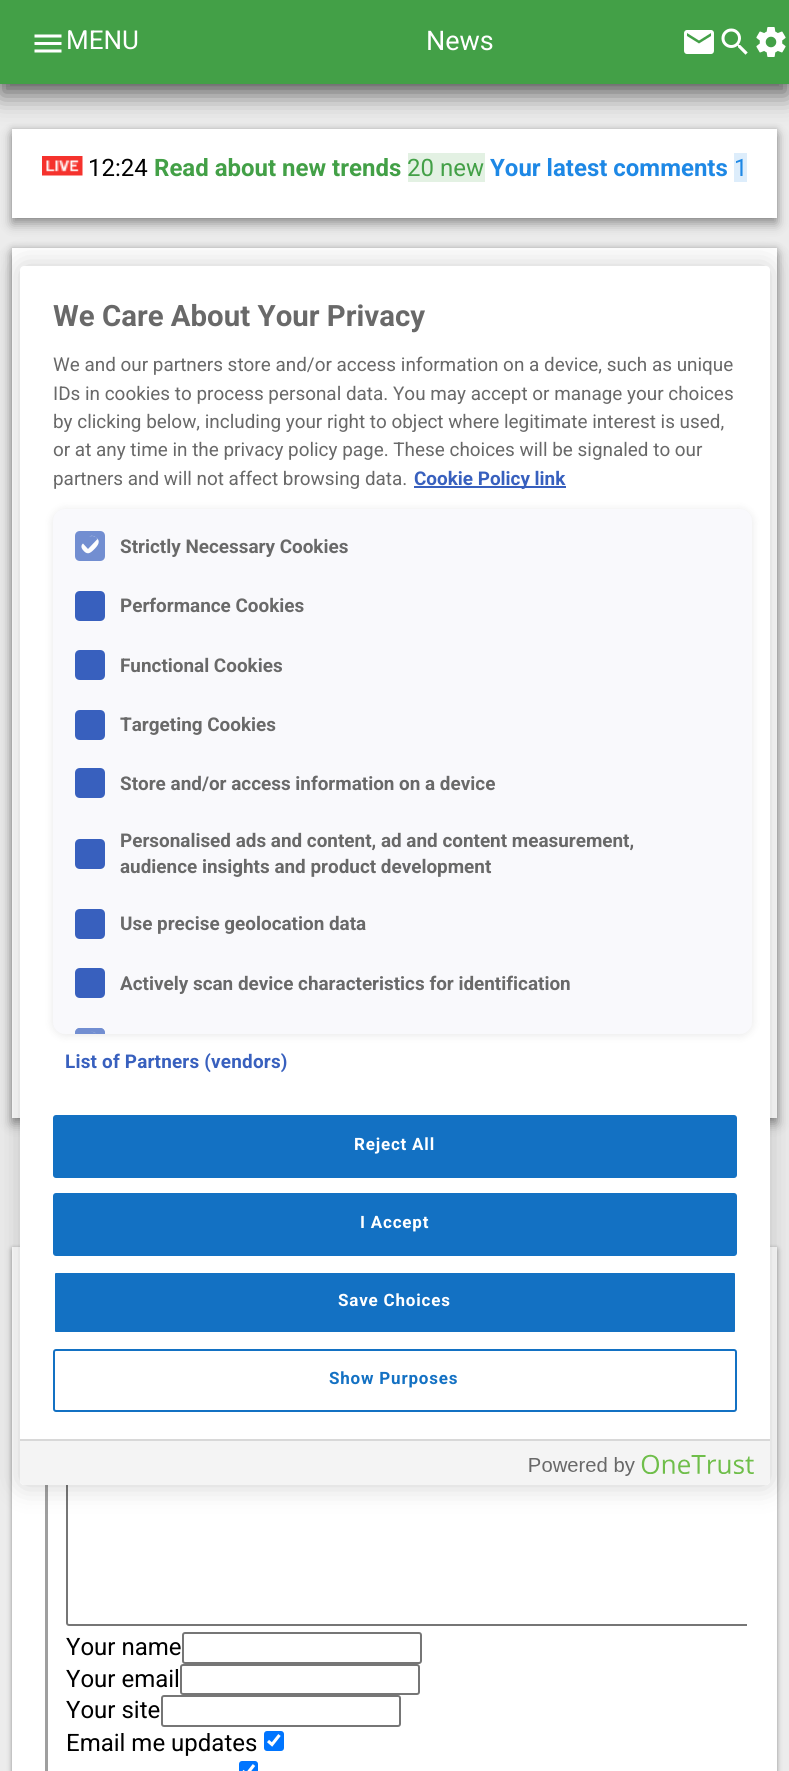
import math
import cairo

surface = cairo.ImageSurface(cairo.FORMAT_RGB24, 789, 1771)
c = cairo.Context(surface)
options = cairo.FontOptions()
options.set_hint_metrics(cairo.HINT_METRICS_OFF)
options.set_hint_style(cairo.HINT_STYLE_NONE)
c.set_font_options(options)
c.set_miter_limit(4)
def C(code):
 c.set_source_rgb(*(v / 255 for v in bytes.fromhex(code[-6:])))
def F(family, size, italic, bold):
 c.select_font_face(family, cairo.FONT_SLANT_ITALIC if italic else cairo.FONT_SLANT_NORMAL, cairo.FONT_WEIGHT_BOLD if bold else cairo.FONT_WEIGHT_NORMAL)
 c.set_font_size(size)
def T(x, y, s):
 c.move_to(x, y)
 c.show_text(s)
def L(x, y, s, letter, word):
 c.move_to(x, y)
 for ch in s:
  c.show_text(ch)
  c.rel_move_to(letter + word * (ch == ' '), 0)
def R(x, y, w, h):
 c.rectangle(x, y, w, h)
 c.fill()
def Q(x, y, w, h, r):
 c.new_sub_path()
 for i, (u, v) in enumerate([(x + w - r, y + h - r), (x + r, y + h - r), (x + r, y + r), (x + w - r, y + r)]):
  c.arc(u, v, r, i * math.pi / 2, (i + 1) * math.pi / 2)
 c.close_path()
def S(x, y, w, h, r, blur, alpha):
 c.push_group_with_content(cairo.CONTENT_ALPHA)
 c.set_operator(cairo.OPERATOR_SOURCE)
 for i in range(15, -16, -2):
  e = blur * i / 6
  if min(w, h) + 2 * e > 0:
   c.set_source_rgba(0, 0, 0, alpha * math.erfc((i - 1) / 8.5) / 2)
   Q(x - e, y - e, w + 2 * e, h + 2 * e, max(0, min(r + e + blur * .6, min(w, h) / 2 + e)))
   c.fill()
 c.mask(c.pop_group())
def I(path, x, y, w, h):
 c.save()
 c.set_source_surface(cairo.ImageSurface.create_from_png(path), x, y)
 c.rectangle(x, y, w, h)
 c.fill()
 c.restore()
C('ececec')
c.paint()
C('000000')
S(12,135,765,89,0,6,.36)
S(12,129,765,89,0,3,.18)
C('ffffff')
R(12,129,765,89)
C('000000')
S(0,12,789,84,0,12,.52)
S(0,0,789,84,0,6,.26)
C('43a047')
R(0,0,789,84)
I('1.png',34,34,28,19)
F('Roboto',26,0,0)
C('ffffff')
T(66,49,'MENU')
F('Roboto',27,0,0)
T(426,50,'News')
I('2.png',684,30,30,24)
I('3.png',721,28,27,27)
I('4.png',756,27,30,30)
I('5.png',42,156,41,20)
F('Roboto',24,0,0)
C('000000')
T(88,176,'12:24')
F('Roboto',24,0,1)
C('43a047')
T(154,176,'Read about new trends')
C('e3f1e3')
R(408,153,77,29)
F('Roboto',24,0,0)
C('43a047')
T(407,176,'20 new')
F('Roboto',24,0,1)
C('1e88e5')
T(490,176,'Your latest comments')
C('ddedfb')
R(734,153,13,29)
F('Roboto',24,0,0)
C('1e88e5')
T(734,176,'1')
C('000000')
S(12,254,765,870,0,6,.36)
S(12,248,765,870,0,3,.18)
C('ffffff')
R(12,248,765,870)
C('000000')
S(12,1250,765,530,0,3,.28)
S(12,1247,765,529,0,1.5,.14)
C('ffffff')
R(12,1247,765,524)
C('9f9f9f')
c.new_path()
c.move_to(45,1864)
c.line_to(45,1270)
c.line_to(48,1274)
c.line_to(48,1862)
c.close_path()
c.fill()
c.save()
c.rectangle(42,1247,705,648)
c.clip()
Q(67,1393,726,232,2)
C('767676')
c.stroke()
c.restore()
C('000000')
T(66,1655,'Your name')
Q(183,1633,238,30,2)
C('767676')
c.stroke()
C('000000')
T(66,1687,'Your email')
Q(181,1665,238,29,2)
C('767676')
c.stroke()
C('000000')
T(66,1718,'Your site')
Q(162,1696,238,30,2)
C('767676')
c.stroke()
C('000000')
T(66,1751,'Email me updates')
C('0075ff')
Q(264,1731,20,20,3)
c.fill()
c.new_path()
c.move_to(268,1741)
c.line_to(272,1744.5)
c.line_to(279.5,1735)
C('ffffff')
c.set_line_width(3.1)
c.stroke()
C('0075ff')
Q(239,1761,19,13,3)
c.fill()
c.new_path()
c.move_to(242.5,1771)
c.line_to(246.5,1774.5)
c.line_to(254,1765)
C('ffffff')
c.stroke()
C('000000')
S(20,266,750,1219,4,13.5,.2)
C('ffffff')
Q(20,266,750,1219,4)
c.fill()
F('Roboto',29.4,0,1)
C('696969')
T(53,326,'We Care About Your Privacy')
F('Roboto',18.9,0,0)
T(53,371,'We and our partners store and/or access information on a device, such as unique')
T(53,400,'IDs in cookies to process personal data. You may accept or manage your choices')
T(53,428,'by clicking below, including your right to object where legitimate interest is used,')
T(53,456,'or at any time in the privacy policy page. These choices will be signaled to our')
T(53,485,'partners and will not affect browsing data.')
C('3860be')
R(414,486,152,2)
F('Roboto',18.9,0,1)
T(414,485,'Cookie Policy link')
C('000000')
S(53,510,699,525,12,4.5,.1)
C('f9f9fc')
Q(53,509,699,525,12)
c.fill()
C('728ed1')
c.new_path()
c.move_to(80,531)
c.line_to(100,531)
c.curve_to(103,531,105,533,105,536)
c.line_to(105,556)
c.curve_to(105,559,103,561,100,561)
c.line_to(80,561)
c.curve_to(77,561,75,559,75,556)
c.line_to(75,536)
c.curve_to(75,533,77,531,80,531)
c.close_path()
c.fill()
C('fdfdfe')
c.set_fill_rule(cairo.FILL_RULE_EVEN_ODD)
c.new_path()
c.move_to(93,536)
c.curve_to(91.5,536,90,536,89,537)
c.curve_to(90,536,91.5,535.5,93,536)
c.close_path()
c.move_to(95.5,537)
c.line_to(93,536)
c.curve_to(94,536,95,536.5,95.5,537)
c.close_path()
c.move_to(83,543.5)
c.curve_to(81,545,81,547.5,82.5,549.5)
c.curve_to(87,555.5,90,553.5,94,549.5)
c.curve_to(98,545.5,101.5,541,95.5,537)
c.line_to(97.5,539)
c.line_to(88,549)
c.close_path()
c.fill()
C('696969')
T(120,553,'Strictly Necessary Cookies')
C('3860be')
c.set_fill_rule(cairo.FILL_RULE_WINDING)
c.new_path()
c.move_to(80,591)
c.line_to(100,591)
c.curve_to(103,591,105,593,105,596)
c.line_to(105,616)
c.curve_to(105,619,103,621,100,621)
c.line_to(80,621)
c.curve_to(77,621,75,619,75,616)
c.line_to(75,596)
c.curve_to(75,593,77,591,80,591)
c.close_path()
c.fill()
C('696969')
T(120,612,'Performance Cookies')
C('3860be')
c.new_path()
c.move_to(80,650)
c.line_to(100,650)
c.curve_to(103,650,105,652,105,655)
c.line_to(105,675)
c.curve_to(105,678,103,680,100,680)
c.line_to(80,680)
c.curve_to(77,680,75,678,75,675)
c.line_to(75,655)
c.curve_to(75,652,77,650,80,650)
c.close_path()
c.fill()
C('696969')
T(120,672,'Functional Cookies')
C('3860be')
c.new_path()
c.move_to(80,710)
c.line_to(100,710)
c.curve_to(103,710,105,712,105,715)
c.line_to(105,735)
c.curve_to(105,738,103,740,100,740)
c.line_to(80,740)
c.curve_to(77,740,75,738,75,735)
c.line_to(75,715)
c.curve_to(75,712,77,710,80,710)
c.close_path()
c.fill()
C('696969')
T(120,731,'Targeting Cookies')
C('3860be')
c.new_path()
c.move_to(80,768)
c.line_to(100,768)
c.curve_to(103,768,105,770,105,773)
c.line_to(105,793)
c.curve_to(105,796,103,798,100,798)
c.line_to(80,798)
c.curve_to(77,798,75,796,75,793)
c.line_to(75,773)
c.curve_to(75,770,77,768,80,768)
c.close_path()
c.fill()
C('696969')
T(120,790,'Store and/or access information on a device')
C('3860be')
c.new_path()
c.move_to(80,839)
c.line_to(100,839)
c.curve_to(103,839,105,841,105,844)
c.line_to(105,864)
c.curve_to(105,867,103,869,100,869)
c.line_to(80,869)
c.curve_to(77,869,75,867,75,864)
c.line_to(75,844)
c.curve_to(75,841,77,839,80,839)
c.close_path()
c.fill()
C('696969')
T(120,847,'Personalised ads and content, ad and content measurement,')
T(120,873,'audience insights and product development')
C('3860be')
c.new_path()
c.move_to(80,909)
c.line_to(100,909)
c.curve_to(103,909,105,911,105,914)
c.line_to(105,934)
c.curve_to(105,937,103,939,100,939)
c.line_to(80,939)
c.curve_to(77,939,75,937,75,934)
c.line_to(75,914)
c.curve_to(75,911,77,909,80,909)
c.close_path()
c.fill()
C('696969')
T(120,930,'Use precise geolocation data')
C('3860be')
c.new_path()
c.move_to(80,968)
c.line_to(100,968)
c.curve_to(103,968,105,970,105,973)
c.line_to(105,993)
c.curve_to(105,996,103,998,100,998)
c.line_to(80,998)
c.curve_to(77,998,75,996,75,993)
c.line_to(75,973)
c.curve_to(75,970,77,968,80,968)
c.close_path()
c.fill()
C('696969')
T(120,990,'Actively scan device characteristics for identification')
C('728ed1')
c.new_path()
c.move_to(80,1028)
c.line_to(100,1028)
c.curve_to(103,1028,105,1030,105,1033)
c.line_to(105,1034)
c.line_to(75,1034)
c.line_to(75,1033)
c.curve_to(75,1030,77,1028,80,1028)
c.close_path()
c.fill()
c.new_path()
c.move_to(80,1028)
c.curve_to(76.5,1028,75,1031,75,1034)
c.line_to(105,1034)
c.curve_to(105,1031,103.5,1028,100,1028)
c.close_path()
c.fill()
C('fdfdfe')
c.set_fill_rule(cairo.FILL_RULE_EVEN_ODD)
c.new_path()
c.move_to(96,1033.5)
c.line_to(96.5,1034)
c.close_path()
c.move_to(96,1033.5)
c.curve_to(94.5,1032,92.5,1031.5,90.5,1032)
c.curve_to(92,1031.5,94,1032,96,1033.5)
c.close_path()
c.move_to(90.5,1032)
c.line_to(89,1033)
c.close_path()
c.fill()
C('3860be')
L(65,1068,'List of Partners (vendors)',.2,0)
C('1371c3')
Q(54,1116,682,61,2)
c.fill_preserve()
c.set_line_width(2)
c.stroke()
F('Roboto',17,0,1)
C('ffffff')
L(354,1150,'Reject All',.8,0)
C('1371c3')
Q(54,1194,682,61,2)
c.fill_preserve()
c.stroke()
C('ffffff')
L(360,1228,'I Accept',.8,0)
C('1371c3')
Q(54,1272,682,61,2)
c.fill_preserve()
C('ffffff')
c.stroke()
L(338,1306,'Save Choices',.8,0)
Q(54,1350,682,61,2)
C('1371c3')
c.stroke()
L(329,1384,'Show Purposes',.8,0)
C('f4f4f4')
c.new_path()
c.move_to(20,1439)
c.line_to(770,1439)
c.line_to(770,1481)
c.curve_to(770,1483,768,1485,766,1485)
c.line_to(24,1485)
c.curve_to(22,1485,20,1483,20,1481)
c.close_path()
c.fill()
C('d8d8d8')
R(20,1439,750,2)
I('6.png',529,1454,225,22)
surface.write_to_png('o.png')
